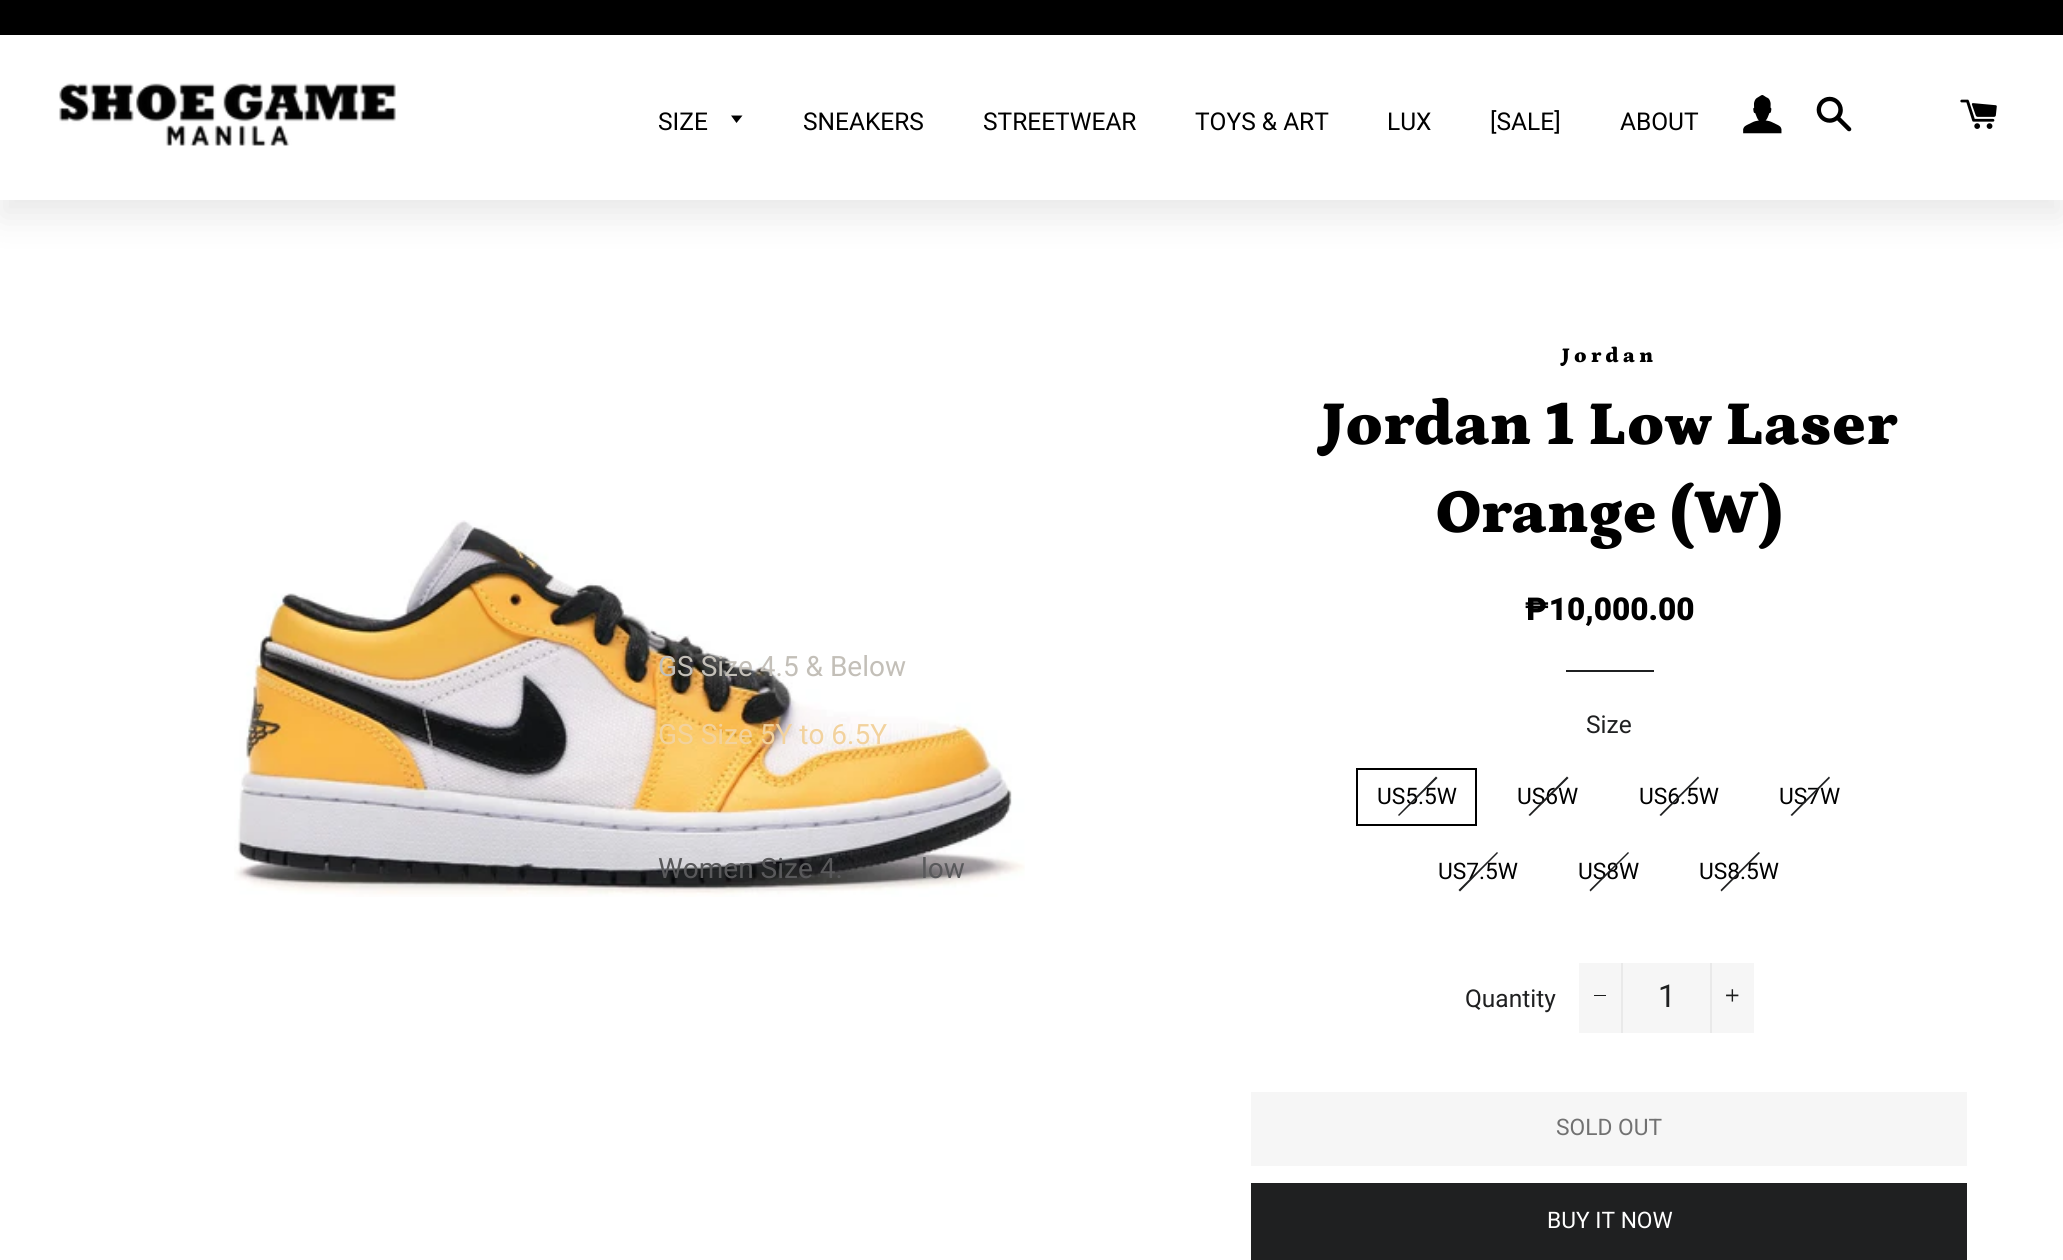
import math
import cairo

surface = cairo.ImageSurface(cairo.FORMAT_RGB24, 2063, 1260)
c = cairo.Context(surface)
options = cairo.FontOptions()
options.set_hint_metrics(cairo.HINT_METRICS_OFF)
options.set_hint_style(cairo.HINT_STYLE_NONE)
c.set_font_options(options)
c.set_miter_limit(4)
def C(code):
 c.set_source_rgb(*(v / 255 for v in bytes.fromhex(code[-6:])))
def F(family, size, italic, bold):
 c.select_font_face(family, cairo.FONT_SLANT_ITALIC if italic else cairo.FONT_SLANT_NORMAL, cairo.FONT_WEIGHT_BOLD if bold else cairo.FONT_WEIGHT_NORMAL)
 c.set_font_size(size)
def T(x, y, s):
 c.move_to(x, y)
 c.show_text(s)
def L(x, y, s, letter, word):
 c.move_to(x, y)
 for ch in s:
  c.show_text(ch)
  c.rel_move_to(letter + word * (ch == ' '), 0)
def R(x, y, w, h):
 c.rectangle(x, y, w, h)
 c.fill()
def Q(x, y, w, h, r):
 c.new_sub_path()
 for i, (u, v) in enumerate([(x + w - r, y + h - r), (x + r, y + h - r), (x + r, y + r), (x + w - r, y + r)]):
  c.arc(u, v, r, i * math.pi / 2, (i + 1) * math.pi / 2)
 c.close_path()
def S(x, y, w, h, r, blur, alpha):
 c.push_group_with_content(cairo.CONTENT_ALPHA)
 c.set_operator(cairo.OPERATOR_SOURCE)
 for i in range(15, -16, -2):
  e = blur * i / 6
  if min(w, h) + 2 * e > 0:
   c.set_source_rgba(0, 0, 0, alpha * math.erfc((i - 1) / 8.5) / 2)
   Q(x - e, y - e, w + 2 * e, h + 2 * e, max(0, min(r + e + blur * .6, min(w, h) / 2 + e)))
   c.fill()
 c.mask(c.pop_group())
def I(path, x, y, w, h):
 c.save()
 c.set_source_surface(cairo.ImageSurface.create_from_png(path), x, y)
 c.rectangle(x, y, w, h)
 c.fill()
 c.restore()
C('ffffff')
c.paint()
C('000000')
S(0,18,2063,199,0,17.5,.09)
C('000000')
R(0,0,2063,35)
C('ffffff')
R(0,35,2063,165)
I('1.png',59,83,337,63)
F('Roboto',24.5,0,0)
C('000000')
T(658,130,'SIZE')
c.new_path()
c.move_to(731,115.5)
c.line_to(736.5,123)
c.line_to(742.5,115.5)
c.close_path()
c.fill()
I('5.png',234,520,791,377)
F('Roboto',28,0,0)
C('c3bfb8')
T(658,676,'GS Size 4.5 & Below')
C('f2d29d')
T(658,744,'GS Size 5Y to 6.5Y')
C('59595b')
T(658,878,'Women Size 4.')
T(921,878,'low')
F('Roboto',24.5,0,0)
C('000000')
T(1490,130,'[SALE]')
I('2.png',1743,95,39,39)
I('3.png',1816,96,36,36)
I('4.png',1960,99,37,30)
T(803,130,'SNEAKERS')
T(983,130,'STREETWEAR')
T(1195,130,'TOYS & ART')
T(1387,130,'LUX')
T(1620,130,'ABOUT')
F('Petrona Black',21,0,0)
L(1562,362,'Jordan',4.25,0)
F('Petrona Black',63,0,0)
T(1322,444,'Jordan 1 Low Laser')
T(1436,532,'Orange (W)')
F('Roboto Black',31.5,0,0)
T(1525,620,'₱10,000.00')
C('1f2021')
R(1566,670,88,2)
F('Roboto',24.5,0,0)
T(1586,733,'Size')
c.rectangle(1357,769,119,56)
C('000000')
c.stroke()
F('Roboto',22.75,0,0)
T(1377,804,'US5.5W')
C('1f2021')
c.new_path()
c.move_to(1436,776.5)
c.line_to(1437.5,778)
c.line_to(1399,816)
c.line_to(1398,815)
c.close_path()
c.fill()
C('000000')
T(1517,804,'US6W')
C('1f2021')
c.new_path()
c.move_to(1567,776.5)
c.line_to(1568.5,778)
c.line_to(1530,816)
c.line_to(1528.5,815)
c.close_path()
c.fill()
C('000000')
T(1639,804,'US6.5W')
C('1f2021')
c.new_path()
c.move_to(1698,776.5)
c.line_to(1699,778)
c.line_to(1661,816)
c.line_to(1659.5,815)
c.close_path()
c.fill()
C('000000')
T(1779,804,'US7W')
C('1f2021')
c.new_path()
c.move_to(1829,776.5)
c.line_to(1830,778)
c.line_to(1792,816)
c.line_to(1790.5,815)
c.close_path()
c.fill()
C('000000')
T(1438,879,'US7.5W')
C('1f2021')
c.new_path()
c.move_to(1497,852)
c.line_to(1498,853)
c.line_to(1460,891.5)
c.line_to(1458.5,890)
c.close_path()
c.fill()
C('000000')
T(1578,879,'US8W')
C('1f2021')
c.new_path()
c.move_to(1628,852)
c.line_to(1629,853)
c.line_to(1590.5,891.5)
c.line_to(1589.5,890)
c.close_path()
c.fill()
C('000000')
T(1699,879,'US8.5W')
C('1f2021')
c.new_path()
c.move_to(1758.5,852)
c.line_to(1760,853)
c.line_to(1721.5,891.5)
c.line_to(1720.5,890)
c.close_path()
c.fill()
F('Roboto',24.5,0,0)
T(1465,1007,'Quantity')
C('f6f6f6')
R(1579,963,175,70)
C('e9e9e9')
R(1621,963,2,70)
C('1c1d1d')
R(1594,995,12,1)
F('Roboto',31.5,0,0)
C('1f2021')
T(1658,1007,'1')
C('e9e9e9')
R(1710,963,2,70)
I('6.png',1726,989,13,13)
C('f6f6f6')
R(1251,1092,716,74)
F('Roboto',22.75,0,0)
C('717171')
T(1556,1135,'SOLD OUT')
C('1f2021')
R(1251,1183,716,77)
C('ffffff')
T(1547,1228,'BUY IT NOW')
surface.write_to_png('o.png')
